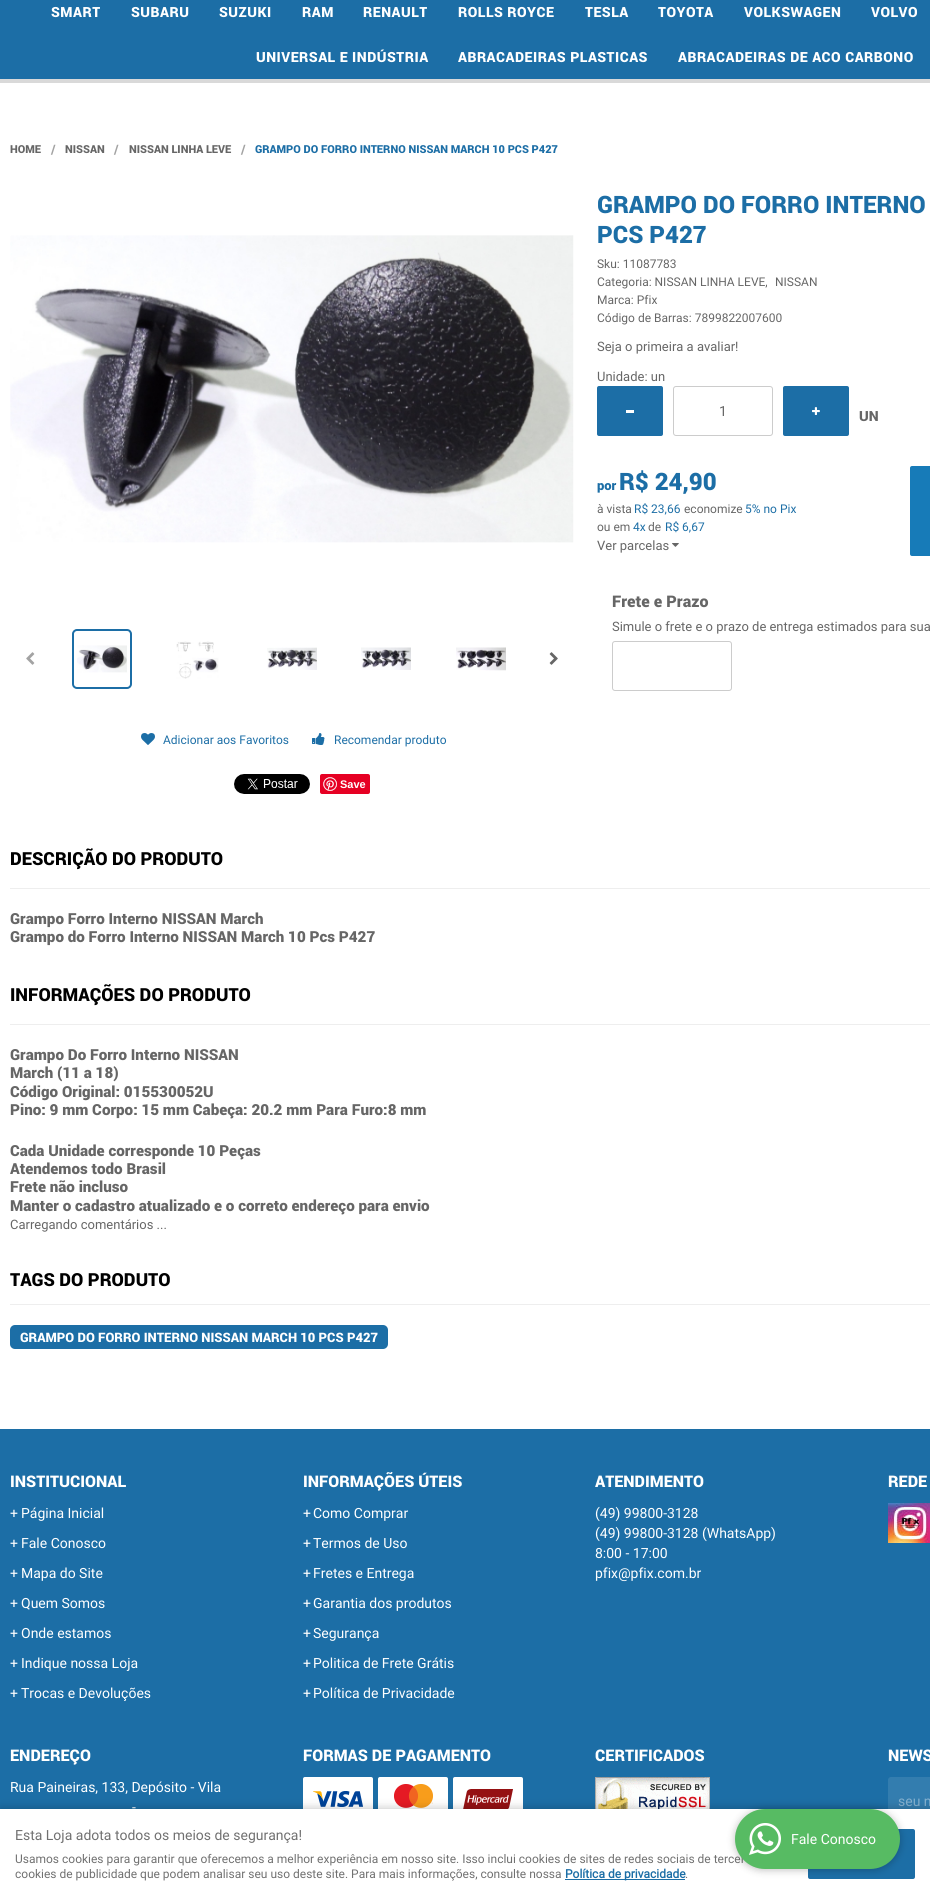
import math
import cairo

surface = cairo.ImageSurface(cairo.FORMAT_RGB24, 930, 1899)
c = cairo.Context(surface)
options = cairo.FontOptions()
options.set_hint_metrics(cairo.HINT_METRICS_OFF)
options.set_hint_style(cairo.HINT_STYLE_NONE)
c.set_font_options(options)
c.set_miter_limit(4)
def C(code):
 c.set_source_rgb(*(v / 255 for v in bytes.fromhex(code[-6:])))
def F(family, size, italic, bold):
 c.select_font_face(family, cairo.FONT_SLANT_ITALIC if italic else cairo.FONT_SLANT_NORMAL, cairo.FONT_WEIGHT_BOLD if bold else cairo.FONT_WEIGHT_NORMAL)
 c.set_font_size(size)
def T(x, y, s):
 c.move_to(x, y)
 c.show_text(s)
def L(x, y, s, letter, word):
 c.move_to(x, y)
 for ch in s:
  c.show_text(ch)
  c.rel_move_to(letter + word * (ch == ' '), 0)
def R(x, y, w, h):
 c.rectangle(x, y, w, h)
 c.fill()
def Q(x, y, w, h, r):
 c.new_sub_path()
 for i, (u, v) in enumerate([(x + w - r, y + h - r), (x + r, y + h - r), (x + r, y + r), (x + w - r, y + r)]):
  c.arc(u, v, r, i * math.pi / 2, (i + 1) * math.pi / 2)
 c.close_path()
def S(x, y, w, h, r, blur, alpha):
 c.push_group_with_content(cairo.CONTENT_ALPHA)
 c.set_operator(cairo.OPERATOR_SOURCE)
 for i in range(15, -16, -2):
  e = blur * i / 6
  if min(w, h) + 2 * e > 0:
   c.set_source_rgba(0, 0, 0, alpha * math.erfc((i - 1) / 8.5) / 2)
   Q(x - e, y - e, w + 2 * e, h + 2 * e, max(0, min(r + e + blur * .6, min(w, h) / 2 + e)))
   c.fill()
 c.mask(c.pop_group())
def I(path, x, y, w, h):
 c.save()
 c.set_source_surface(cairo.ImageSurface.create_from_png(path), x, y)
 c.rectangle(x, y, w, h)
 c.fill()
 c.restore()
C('ffffff')
c.paint()
C('d9d9d9')
R(0,79,930,4)
C('1c6ea6')
R(0,0,930,79)
F('Roboto Black',14,0,0)
C('ffffff')
L(51,17,'SMART',.5,0)
L(131,17,'SUBARU',.5,0)
L(219,17,'SUZUKI',.5,0)
L(302,17,'RAM',.5,0)
L(363,17,'RENAULT',.5,0)
L(458,17,'ROLLS ROYCE',.5,0)
L(585,17,'TESLA',.5,0)
L(658,17,'TOYOTA',.5,0)
L(744,17,'VOLKSWAGEN',.5,0)
L(871,17,'VOLVO',.5,0)
L(256,62,'UNIVERSAL E INDÚSTRIA',.5,0)
L(458,62,'ABRACADEIRAS PLASTICAS',.5,0)
L(678,62,'ABRACADEIRAS DE ACO CARBONO',.5,0)
F('Roboto Black',11,0,0)
C('666666')
T(10,153,'HOME')
F('Roboto Black',13,0,0)
C('a3a3a3')
T(51,154,'/')
F('Roboto Black',11,0,0)
C('666666')
T(65,153,'NISSAN')
F('Roboto Black',13,0,0)
C('a3a3a3')
T(114,154,'/')
F('Roboto Black',11,0,0)
C('666666')
T(129,153,'NISSAN LINHA LEVE')
F('Roboto Black',13,0,0)
C('a3a3a3')
T(241,154,'/')
F('Roboto Black',11,0,0)
C('1c6ea6')
T(255,153,'GRAMPO DO FORRO INTERNO NISSAN MARCH 10 PCS P427')
F('Roboto Black',24,0,0)
T(597,213,'GRAMPO DO FORRO INTERNO')
T(597,243,'PCS P427')
F('Roboto',12,0,0)
C('666666')
T(597,268,'Sku: 11087783')
T(597,286,'Categoria: NISSAN LINHA LEVE,')
T(775,286,'NISSAN')
T(597,304,'Marca: Pfix')
T(597,322,'Código de Barras: 7899822007600')
F('Roboto',13,0,0)
T(597,351,'Seja o primeira a avaliar!')
T(597,381,'Unidade: un')
C('1c6ea6')
Q(597,386,66,50,2)
c.fill()
C('ffffff')
R(626,410,8,3)
Q(673.5,386.5,99,49,2.5)
C('cccccc')
c.set_line_width(1)
c.stroke()
F('Roboto',14,0,0)
C('666666')
T(719,416,'1')
C('1c6ea6')
Q(783,386,66,50,2)
c.fill()
I('1.png',812,407,8,8)
F('Roboto Black',14,0,0)
C('666666')
T(859,421,'UN')
F('Roboto Black',13,0,0)
C('1c6ea6')
T(597,490,'por')
F('Roboto Black',24,0,0)
T(619,490,'R$ 24,90')
F('Roboto',12,0,0)
C('666666')
T(597,513,'à vista')
C('1c6ea6')
T(634,513,'R$ 23,66')
C('666666')
T(684,513,'economize')
C('1c6ea6')
T(745,513,'5% no Pix')
C('666666')
T(597,531,'ou em')
C('1c6ea6')
T(633,531,'4x')
C('666666')
T(648,531,'de')
C('1c6ea6')
T(665,531,'R$ 6,67')
F('Roboto',13,0,0)
C('666666')
T(597,550,'Ver parcelas')
I('2.png',672,543,7,4)
C('177bb8')
Q(910,466,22,90,2)
c.fill()
F('Roboto Black',16,0,0)
C('666666')
T(612,607,'Frete e Prazo')
F('Roboto',13,0,0)
T(612,631,'Simule o frete e o prazo de entrega estimados para sua')
Q(612.5,641.5,119,49,2.5)
C('cccccc')
c.stroke()
I('3.png',10,235,564,308)
Q(73,630,58,58,4)
C('1c6ea6')
c.set_line_width(2)
c.stroke()
I('4.png',77,645,50,28)
I('5.png',176,641,43,38)
I('6.png',267,647,50,23)
I('7.png',361,647,50,23)
I('8.png',456,647,50,24)
I('9.png',26,652,9,13)
I('10.png',549,652,9,13)
I('11.png',141,733,14,12)
F('Roboto',12,0,0)
T(163,744,'Adicionar aos Favoritos')
I('12.png',312,733,13,12)
T(334,744,'Recomendar produto')
I('13.png',234,774,76,20)
C('e60023')
Q(320,774,50,20,2)
c.fill()
I('14.png',323,777,14,14)
F('Liberation Sans',11,0,1)
C('ffffff')
T(340,788,'Save')
C('eeeeee')
R(10,888,920,1)
F('Roboto Black',18,0,0)
C('000000')
T(10,865,'DESCRIÇÃO DO PRODUTO')
F('Roboto Black',15.2,0,0)
C('666666')
T(10,924,'Grampo Forro Interno NISSAN March')
T(10,942,'Grampo do Forro Interno NISSAN March 10 Pcs P427')
C('eeeeee')
R(10,1024,920,1)
F('Roboto Black',18,0,0)
C('000000')
T(10,1001,'INFORMAÇÕES DO PRODUTO')
F('Roboto Black',15.2,0,0)
C('666666')
T(10,1060,'Grampo Do Forro Interno NISSAN')
T(10,1078,'March (11 a 18)')
T(10,1097,'Código Original: 015530052U')
T(10,1115,'Pino: 9 mm Corpo: 15 mm Cabeça: 20.2 mm Para Furo:8 mm')
T(10,1156,'Cada Unidade corresponde 10 Peças')
T(10,1174,'Atendemos todo Brasil')
T(10,1192,'Frete não incluso')
T(10,1211,'Manter o cadastro atualizado e o correto endereço para envio')
F('Roboto',13,0,0)
T(10,1229,'Carregando comentários ...')
C('eeeeee')
R(10,1304,920,1)
F('Roboto Black',18,0,0)
C('000000')
T(10,1286,'TAGS DO PRODUTO')
C('1c6ea6')
Q(10,1325,378,24,5)
c.fill()
F('Roboto Black',13,0,0)
C('ffffff')
T(20,1342,'GRAMPO DO FORRO INTERNO NISSAN MARCH 10 PCS P427')
C('1c6ea6')
R(0,1429,930,380)
F('Roboto Black',16,0,0)
C('ffffff')
T(10,1487,'INSTITUCIONAL')
F('Roboto',14,0,0)
T(10,1518,'+')
T(21,1518,'Página Inicial')
T(10,1548,'+')
T(21,1548,'Fale Conosco')
T(10,1578,'+')
T(21,1578,'Mapa do Site')
T(10,1608,'+')
T(21,1608,'Quem Somos')
T(10,1638,'+')
T(21,1638,'Onde estamos')
T(10,1668,'+')
T(21,1668,'Indique nossa Loja')
T(10,1698,'+')
T(21,1698,'Trocas e Devoluções')
F('Roboto Black',16,0,0)
T(303,1487,'INFORMAÇÕES ÚTEIS')
F('Roboto',14,0,0)
T(303,1518,'+')
T(313,1518,'Como Comprar')
T(303,1548,'+')
T(313,1548,'Termos de Uso')
T(303,1578,'+')
T(313,1578,'Fretes e Entrega')
T(303,1608,'+')
T(313,1608,'Garantia dos produtos')
T(303,1638,'+')
T(313,1638,'Segurança')
T(303,1668,'+')
T(313,1668,'Politica de Frete Grátis')
T(303,1698,'+')
T(313,1698,'Política de Privacidade')
F('Roboto Black',16,0,0)
T(595,1487,'ATENDIMENTO')
F('Roboto',14,0,0)
T(595,1518,'(49) 99800-3128')
T(595,1538,'(49) 99800-3128 (WhatsApp)')
T(595,1558,'8:00 - 17:00')
T(595,1578,'pfix@pfix.com.br')
F('Roboto Black',16,0,0)
T(888,1487,'REDE')
I('15.png',888,1503,42,40)
T(10,1761,'ENDEREÇO')
F('Roboto',14,0,0)
T(10,1792,'Rua Paineiras, 133, Depósito - Vila')
T(132,1812,'-')
F('Roboto Black',16,0,0)
T(303,1761,'FORMAS DE PAGAMENTO')
Q(303,1777,70,44,2)
c.fill()
Q(303.5,1777.5,69,43,1.5)
c.set_source_rgba(1,1,1,0.2)
c.set_line_width(1)
c.stroke()
I('16.png',313,1791,50,16)
C('ffffff')
Q(378,1777,70,44,2)
c.fill()
Q(378.5,1777.5,69,43,1.5)
c.set_source_rgba(1,1,1,0.2)
c.stroke()
I('17.png',394,1784,39,24)
C('ffffff')
Q(453,1777,70,44,2)
c.fill()
Q(453.5,1777.5,69,43,1.5)
c.set_source_rgba(1,1,1,0.2)
c.stroke()
I('18.png',463,1789,50,20)
C('ffffff')
T(595,1761,'CERTIFICADOS')
I('19.png',595,1777,115,32)
T(888,1761,'NEWS')
C('337daf')
Q(888,1777,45,48,3)
c.fill()
F('Roboto',14,0,0)
C('85b1cf')
T(898,1806,'seu n')
C('000000')
S(0,1809,930,90,0,5,.25)
C('ffffff')
R(0,1809,930,90)
C('707070')
T(15,1840,'Esta Loja adota todos os meios de segurança!')
F('Roboto',12,0,0)
T(15,1863,'Usamos cookies para garantir que oferecemos a melhor experiência em nosso site. Isso inclui cookies de sites de redes sociais de tercei')
T(15,1878,'cookies de publicidade que podem analisar seu uso deste site. Para mais informações, consulte nossa')
C('1c6ea6')
R(565,1879,120,1)
F('Roboto',12,0,1)
T(565,1878,'Política de privacidade')
F('Roboto',12,0,0)
C('707070')
T(685,1878,'.')
C('1c6ea6')
Q(808,1829,107,50,2)
c.fill()
C('000000')
S(735,1810,165,60,30,4,.25)
C('57bb63')
Q(735,1809,165,60,30)
c.fill()
I('20.png',749,1823,32,32)
F('Roboto',14,0,0)
C('ffffff')
T(791,1844,'Fale Conosco')
surface.write_to_png('o.png')
